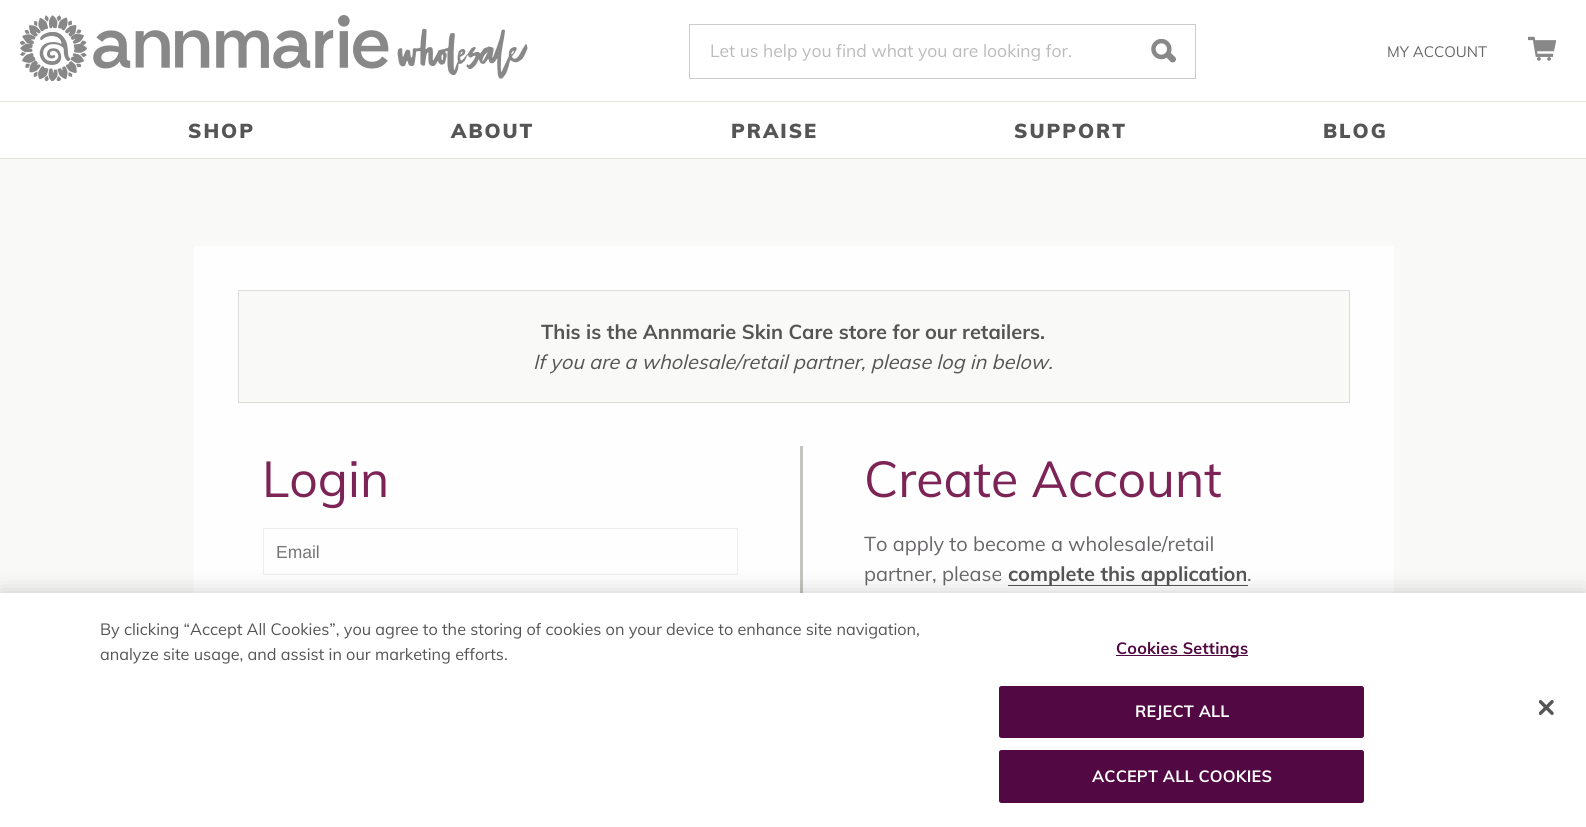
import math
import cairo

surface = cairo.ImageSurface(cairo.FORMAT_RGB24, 1586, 827)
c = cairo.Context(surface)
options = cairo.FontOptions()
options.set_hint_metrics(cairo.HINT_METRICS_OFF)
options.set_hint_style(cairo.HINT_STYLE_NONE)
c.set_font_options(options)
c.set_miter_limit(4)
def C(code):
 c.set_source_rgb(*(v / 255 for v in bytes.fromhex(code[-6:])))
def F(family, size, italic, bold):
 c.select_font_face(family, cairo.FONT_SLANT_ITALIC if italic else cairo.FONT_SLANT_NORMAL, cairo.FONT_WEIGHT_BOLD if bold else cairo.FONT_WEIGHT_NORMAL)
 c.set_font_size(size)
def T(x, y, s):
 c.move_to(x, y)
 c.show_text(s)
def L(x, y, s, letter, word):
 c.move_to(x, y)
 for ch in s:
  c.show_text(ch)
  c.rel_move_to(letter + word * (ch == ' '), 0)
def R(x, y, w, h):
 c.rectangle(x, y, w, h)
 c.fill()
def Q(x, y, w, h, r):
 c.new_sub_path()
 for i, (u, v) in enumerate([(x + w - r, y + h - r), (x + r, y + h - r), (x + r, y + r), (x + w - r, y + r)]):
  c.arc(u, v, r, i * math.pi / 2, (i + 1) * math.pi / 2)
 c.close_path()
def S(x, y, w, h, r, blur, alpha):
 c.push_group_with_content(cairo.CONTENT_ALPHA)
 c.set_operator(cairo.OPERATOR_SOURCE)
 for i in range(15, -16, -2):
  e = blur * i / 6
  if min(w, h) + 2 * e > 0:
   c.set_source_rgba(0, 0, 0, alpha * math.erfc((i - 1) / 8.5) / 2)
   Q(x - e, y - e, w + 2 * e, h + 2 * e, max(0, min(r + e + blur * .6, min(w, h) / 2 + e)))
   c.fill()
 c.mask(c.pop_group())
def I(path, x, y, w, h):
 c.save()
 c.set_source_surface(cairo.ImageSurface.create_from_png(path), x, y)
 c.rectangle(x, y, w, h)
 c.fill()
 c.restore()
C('f9f9f7')
c.paint()
C('ffffff')
R(0,0,1586,158)
C('e4e1da')
R(0,101,1586,1)
I('1.png',20,15,508,66)
c.rectangle(689.5,24.5,506,54)
C('cccccc')
c.set_line_width(1)
c.stroke()
F('Muli',17.5,0,0)
C('bbbbbb')
T(710,57,'Let us help you find what you are looking for.')
I('2.png',1151,39,25,24)
F('Muli',15,0,0)
C('696669')
T(1387,57,'MY ACCOUNT')
I('3.png',1528,36,28,25)
C('e4e1da')
R(0,158,1586,1)
F('Muli Black',20,0,0)
C('555555')
L(188,138,'SHOP',2,0)
L(451,138,'ABOUT',2,0)
L(731,138,'PRAISE',2,0)
L(1014,138,'SUPPORT',2,0)
L(1323,138,'BLOG',2,0)
C('fefefe')
R(194,246,1200,347)
C('f9f9f7')
c.rectangle(238.5,290.5,1111,112)
c.fill_preserve()
C('dddcd8')
c.stroke()
F('Muli',20,0,1)
C('555555')
T(541,339,'This is the Annmarie Skin Care store for our retailers.')
F('Muli',20,1,0)
T(533,369,'If you are a wholesale/retail partner, please log in below.')
F('Muli',50,0,0)
C('7d2457')
T(262,497,'Login')
c.rectangle(263.5,528.5,474,46)
C('eeeeee')
c.stroke()
F('Liberation Sans',17.5,0,0)
C('757575')
T(276,558,'Email')
C('c5c3bd')
R(800,446,3,147)
F('Muli',50,0,0)
C('7d2457')
T(864,497,'Create Account')
F('Muli',20,0,0)
C('696669')
T(864,551,'To apply to become a wholesale/retail')
T(864,581,'partner, please')
C('555555')
R(1008,585,240,1)
F('Muli',20,0,1)
T(1008,581,'complete this application')
F('Muli',20,0,0)
C('696669')
T(1247,581,'.')
C('000000')
S(0,593,1586,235,0,11,.2)
C('ffffff')
R(0,593,1586,234)
F('Muli',16.25,0,0)
C('555555')
T(100,635,'By clicking “Accept All Cookies”, you agree to the storing of cookies on your device to enhance site navigation,')
T(100,660,'analyze site usage, and assist in our marketing efforts.')
C('520843')
R(1116,655,132,1)
F('Muli',16.25,0,1)
L(1116,654,'Cookies Settings',.2,0)
Q(999.5,686.5,364,51,2)
c.fill_preserve()
c.stroke()
C('ffffff')
L(1135,717,'REJECT ALL',.2,0)
C('520843')
Q(999.5,750.5,364,52,2)
c.fill_preserve()
c.stroke()
C('ffffff')
L(1092,782,'ACCEPT ALL COOKIES',.2,0)
I('4.png',1539,700,15,15)
surface.write_to_png('o.png')
